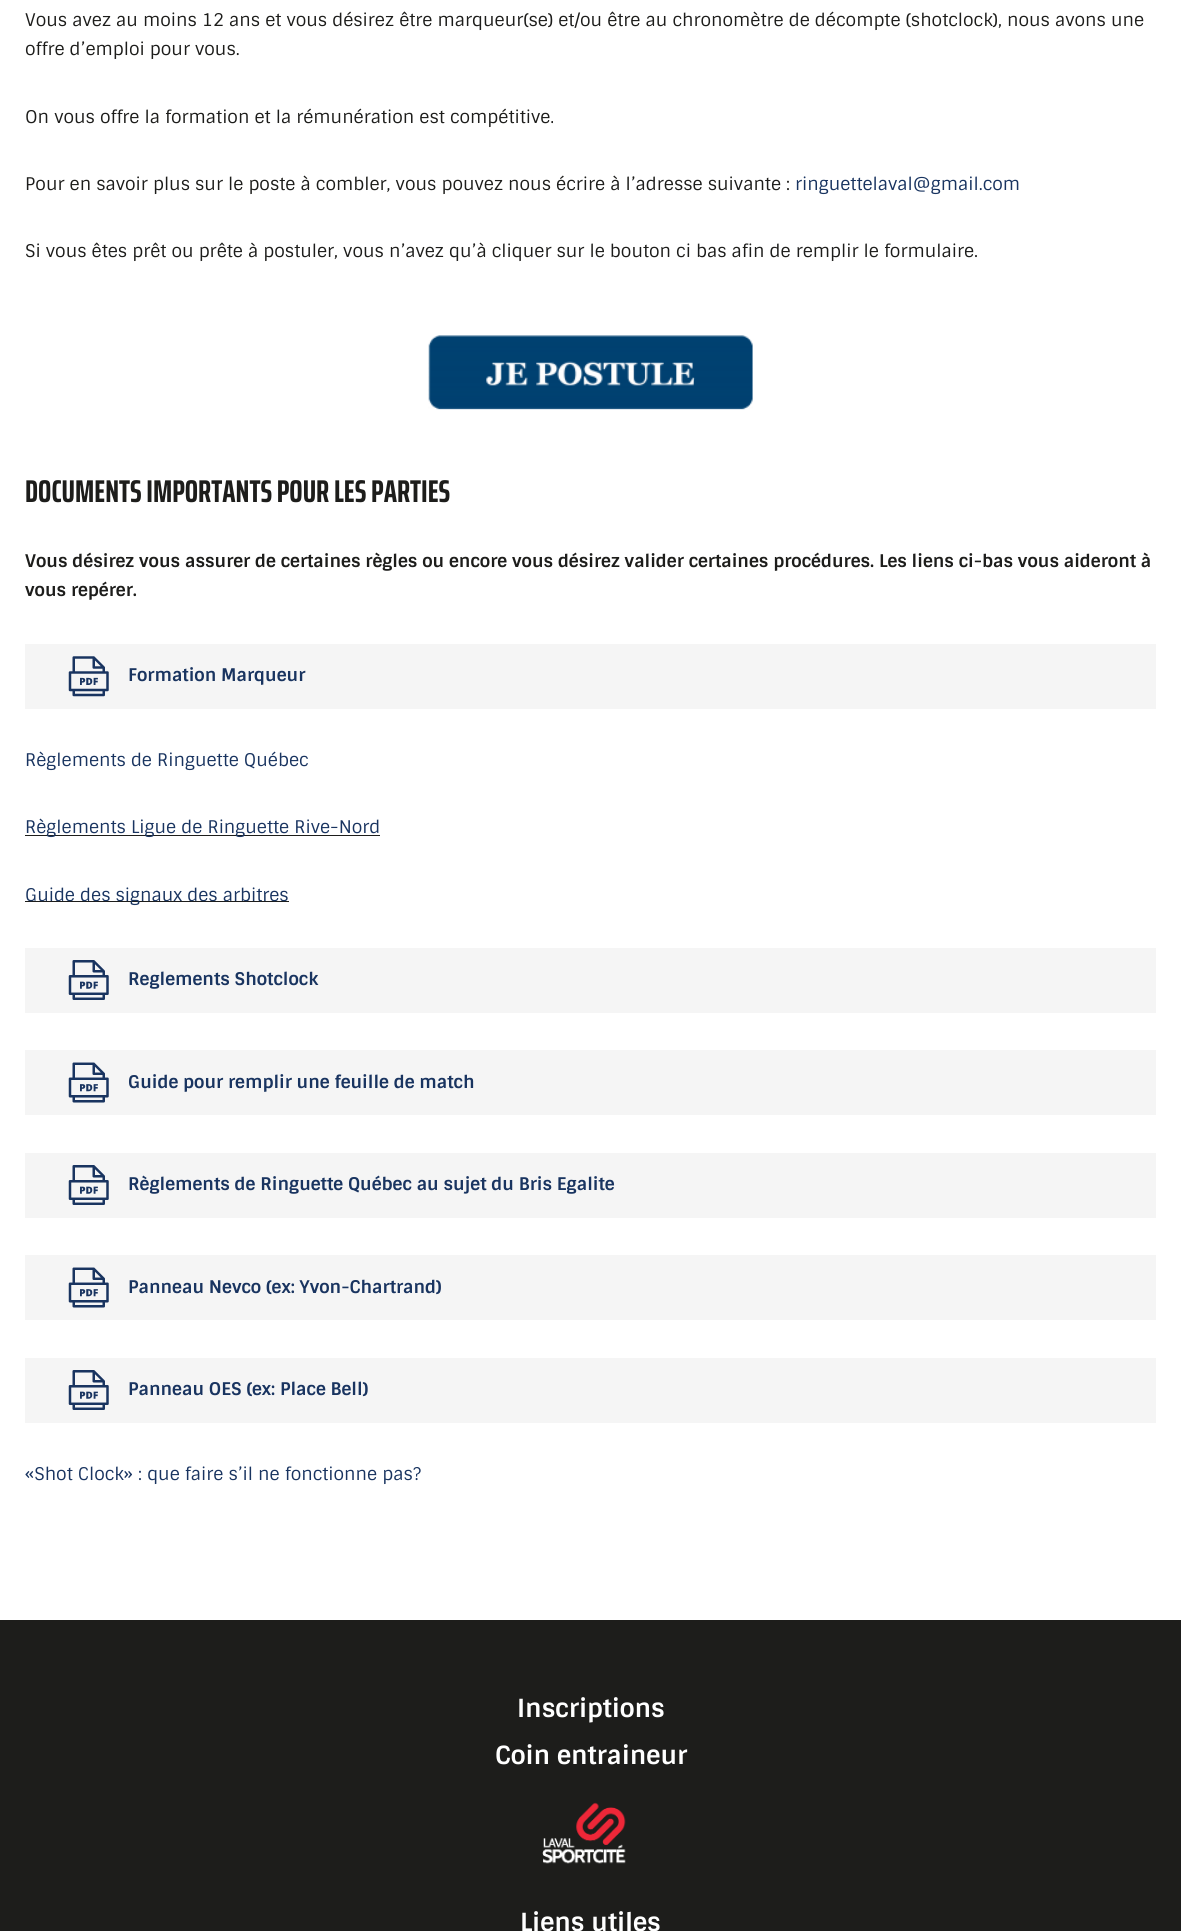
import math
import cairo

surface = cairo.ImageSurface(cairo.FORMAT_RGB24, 1181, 1931)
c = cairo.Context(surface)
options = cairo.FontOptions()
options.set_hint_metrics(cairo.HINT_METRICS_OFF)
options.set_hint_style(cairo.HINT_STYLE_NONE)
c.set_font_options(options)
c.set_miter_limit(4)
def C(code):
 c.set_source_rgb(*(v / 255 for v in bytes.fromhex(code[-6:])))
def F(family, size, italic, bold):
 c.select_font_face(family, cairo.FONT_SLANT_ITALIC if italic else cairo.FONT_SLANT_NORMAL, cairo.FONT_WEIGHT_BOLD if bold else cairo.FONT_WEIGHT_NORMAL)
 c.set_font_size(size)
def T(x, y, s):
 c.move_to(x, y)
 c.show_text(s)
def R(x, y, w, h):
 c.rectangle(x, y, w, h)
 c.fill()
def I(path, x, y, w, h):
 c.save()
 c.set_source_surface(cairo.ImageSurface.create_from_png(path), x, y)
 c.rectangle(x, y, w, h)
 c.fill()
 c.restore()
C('1d1d1b')
c.paint()
C('ffffff')
R(0,0,1181,1620)
F('Sintony',17.5,0,0)
C('1d1d1b')
T(25,26,'Vous avez au moins 12 ans et vous désirez être marqueur(se) et/ou être au chronomètre de décompte (shotclock), nous avons une')
T(25,55,'offre d’emploi pour vous.')
T(25,123,'On vous offre la formation et la rémunération est compétitive.')
T(25,190,'Pour en savoir plus sur le poste à combler, vous pouvez nous écrire à l’adresse suivante :')
C('193460')
T(795,190,'ringuettelaval@gmail.com')
C('1d1d1b')
T(25,257,'Si vous êtes prêt ou prête à postuler, vous n’avez qu’à cliquer sur le bouton ci bas afin de remplir le formulaire.')
I('1.png',428,335,325,75)
F('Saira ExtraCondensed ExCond',31.5,0,1)
T(25,502,'DOCUMENTS IMPORTANTS POUR LES PARTIES')
F('Sintony',17.5,0,1)
T(25,567,'Vous désirez vous assurer de certaines règles ou encore vous désirez valider certaines procédures. Les liens ci-bas vous aideront à')
T(25,596,'vous repérer.')
C('f5f5f5')
R(25,644,1131,65)
I('2.png',68,656,41,41)
C('193460')
T(128,681,'Formation Marqueur')
F('Sintony',17.5,0,0)
T(25,766,'Règlements de Ringuette Québec')
C('1d1d1b')
R(25,835,355,1)
C('193460')
T(25,833,'Règlements Ligue de Ringuette Rive-Nord')
C('1d1d1b')
R(25,901,264,1)
C('193460')
T(25,901,'Guide des signaux des arbitres')
C('f5f5f5')
R(25,948,1131,65)
I('3.png',68,960,41,40)
F('Sintony',17.5,0,1)
C('193460')
T(128,985,'Reglements Shotclock')
C('f5f5f5')
R(25,1050,1131,65)
I('4.png',68,1062,41,41)
C('193460')
T(128,1088,'Guide pour remplir une feuille de match')
C('f5f5f5')
R(25,1153,1131,65)
I('3.png',68,1165,41,40)
C('193460')
T(128,1190,'Règlements de Ringuette Québec au sujet du Bris Egalite')
C('f5f5f5')
R(25,1255,1131,65)
I('4.png',68,1267,41,41)
C('193460')
T(128,1293,'Panneau Nevco (ex: Yvon-Chartrand)')
C('f5f5f5')
R(25,1358,1131,65)
I('3.png',68,1370,41,40)
C('193460')
T(128,1395,'Panneau OES (ex: Place Bell)')
F('Sintony',17.5,0,0)
T(25,1480,'«Shot Clock» : que faire s’il ne fonctionne pas?')
F('Sintony',25,0,1)
C('ffffff')
T(517,1717,'Inscriptions')
T(495,1764,'Coin entraineur')
I('5.png',542,1802,84,62)
T(520,1931,'Liens utiles')
surface.write_to_png('o.png')
